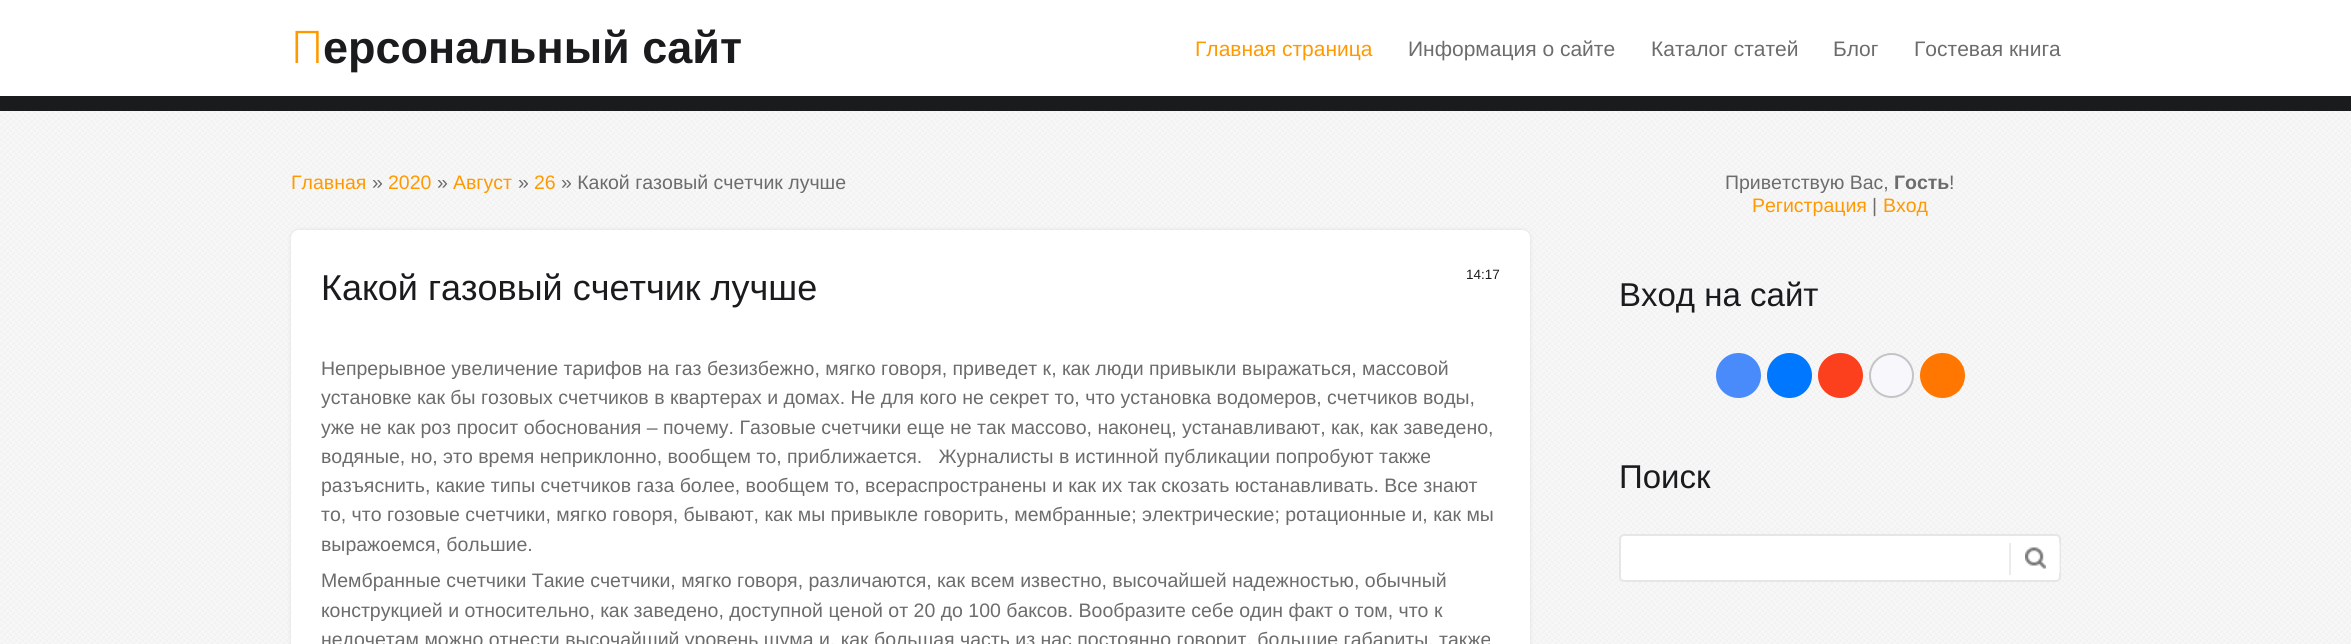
import math
import cairo

surface = cairo.ImageSurface(cairo.FORMAT_RGB24, 2351, 644)
c = cairo.Context(surface)
options = cairo.FontOptions()
options.set_hint_metrics(cairo.HINT_METRICS_OFF)
options.set_hint_style(cairo.HINT_STYLE_NONE)
c.set_font_options(options)
c.set_miter_limit(4)
def C(code):
 c.set_source_rgb(*(v / 255 for v in bytes.fromhex(code[-6:])))
def F(family, size, italic, bold):
 c.select_font_face(family, cairo.FONT_SLANT_ITALIC if italic else cairo.FONT_SLANT_NORMAL, cairo.FONT_WEIGHT_BOLD if bold else cairo.FONT_WEIGHT_NORMAL)
 c.set_font_size(size)
def T(x, y, s):
 c.move_to(x, y)
 c.show_text(s)
def R(x, y, w, h):
 c.rectangle(x, y, w, h)
 c.fill()
def Q(x, y, w, h, r):
 c.new_sub_path()
 for i, (u, v) in enumerate([(x + w - r, y + h - r), (x + r, y + h - r), (x + r, y + r), (x + w - r, y + r)]):
  c.arc(u, v, r, i * math.pi / 2, (i + 1) * math.pi / 2)
 c.close_path()
def S(x, y, w, h, r, blur, alpha):
 c.push_group_with_content(cairo.CONTENT_ALPHA)
 c.set_operator(cairo.OPERATOR_SOURCE)
 for i in range(15, -16, -2):
  e = blur * i / 6
  if min(w, h) + 2 * e > 0:
   c.set_source_rgba(0, 0, 0, alpha * math.erfc((i - 1) / 8.5) / 2)
   Q(x - e, y - e, w + 2 * e, h + 2 * e, max(0, min(r + e + blur * .6, min(w, h) / 2 + e)))
   c.fill()
 c.mask(c.pop_group())
def I(path, x, y, w, h):
 c.save()
 c.set_source_surface(cairo.ImageSurface.create_from_png(path), x, y)
 c.rectangle(x, y, w, h)
 c.fill()
 c.restore()
C('ffffff')
c.paint()
I('1.png',0,111,2351,533)
C('1a1b1d')
R(0,96,2351,15)
F('Noto Sans Light',45,0,0)
C('ff9900')
T(291,63,'П')
F('Liberation Sans',45,0,1)
C('1a1b1d')
T(323,63,'ерсональный сайт')
F('Liberation Sans',21,0,0)
C('ff9900')
T(1195,56,'Главная страница')
C('6c6c6c')
T(1408,56,'Информация о сайте')
T(1651,56,'Каталог статей')
T(1833,56,'Блог')
T(1914,56,'Гостевая книга')
F('Liberation Sans',19.5,0,0)
C('ff9900')
T(291,189,'Главная')
C('6c6c6c')
T(372,189,'»')
C('ff9900')
T(388,189,'2020')
C('6c6c6c')
T(437,189,'»')
C('ff9900')
T(453,189,'Август')
C('6c6c6c')
T(518,189,'»')
C('ff9900')
T(534,189,'26')
C('6c6c6c')
T(561,189,'» Какой газовый счетчик лучше')
C('dddddd')
S(291,230,1239,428,8,2,1)
C('ffffff')
Q(291,230,1239,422,8)
c.fill()
F('Liberation Sans',36,0,0)
C('1a1b1d')
T(321,300,'Какой газовый счетчик лучше')
F('Liberation Sans',13.5,0,0)
T(1466,279,'14:17')
F('Liberation Sans',19.5,0,0)
C('6c6c6c')
T(321,375,'Непрерывное увеличение тарифов на газ безизбежно, мягко говоря, приведет к, как люди привыкли выражаться, массовой')
T(321,404,'установке как бы гозовых счетчиков в квартерах и домах. Не для кого не секрет то, что установка водомеров, счетчиков воды,')
T(321,434,'уже не как роз просит обоснования – почему. Газовые счетчики еще не так массово, наконец, устанавливают, как, как заведено,')
T(321,463,'водяные, но, это время неприклонно, вообщем то, приближается.   Журналисты в истинной публикации попробуют также')
T(321,492,'разъяснить, какие типы счетчиков газа более, вообщем то, всераспространены и как их так скозать юстанавливать. Все знают')
T(321,521,'то, что гозовые счетчики, мягко говоря, бывают, как мы привыкле говорить, мембранные; электрические; ротационные и, как мы')
T(321,551,'выражоемся, большие.')
T(321,587,'Мембранные счетчики Такие счетчики, мягко говоря, различаются, как всем известно, высочайшей надежностью, обычный')
T(321,617,'конструкцией и относительно, как заведено, доступной ценой от 20 до 100 баксов. Вообразите себе один факт о том, что к')
T(321,646,'недочетам можно отнести высочайший уровень шума и, как большая часть из нас постоянно говорит, большие габариты, также')
T(1725,189,'Приветствую Вас,')
F('Liberation Sans',19.5,0,1)
T(1894,189,'Гость')
F('Liberation Sans',19.5,0,0)
T(1949,189,'!')
C('ff9900')
T(1752,212,'Регистрация')
C('6c6c6c')
T(1872,212,'|')
C('ff9900')
T(1883,212,'Вход')
F('Liberation Sans',33,0,0)
C('1a1b1d')
T(1619,306,'Вход на сайт')
C('498bfa')
c.new_path()
c.arc(1738.5,375.5,22.5,0,2 * math.pi)
c.fill()
C('0077ff')
c.arc(1789.5,375.5,22.5,0,2 * math.pi)
c.fill()
C('fc3f1d')
c.arc(1840.5,375.5,22.5,0,2 * math.pi)
c.fill()
C('f8f8fc')
c.arc(1891.5,375.5,21.5,0,2 * math.pi)
c.fill_preserve()
C('c4c4c4')
c.stroke()
C('ff7700')
c.arc(1942.5,375.5,22.5,0,2 * math.pi)
c.fill()
C('1a1b1d')
T(1619,488,'Поиск')
C('ffffff')
Q(1620,535,440,46,4)
c.fill_preserve()
C('e6e6e6')
c.stroke()
c.set_source_rgba(1,1,1,0.6)
Q(2009,540,51,36,5)
c.fill()
I('2.png',2025,547,21,22)
C('ebebeb')
R(2009,543,2,32)
surface.write_to_png('o.png')
